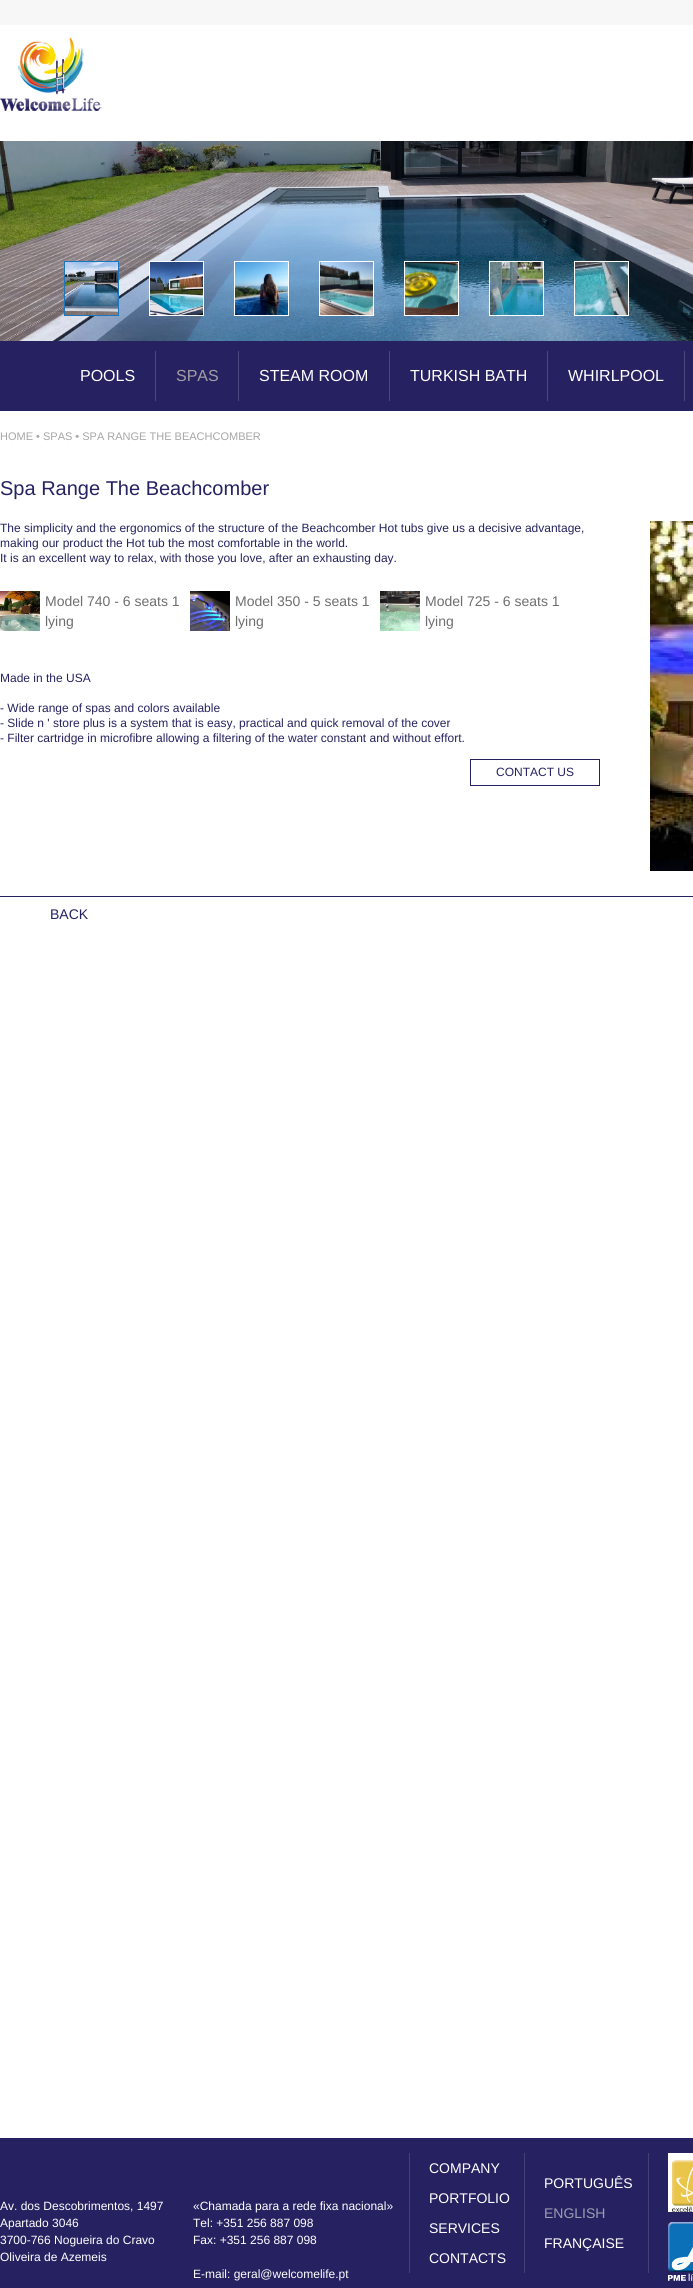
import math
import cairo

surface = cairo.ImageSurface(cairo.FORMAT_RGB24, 693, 2288)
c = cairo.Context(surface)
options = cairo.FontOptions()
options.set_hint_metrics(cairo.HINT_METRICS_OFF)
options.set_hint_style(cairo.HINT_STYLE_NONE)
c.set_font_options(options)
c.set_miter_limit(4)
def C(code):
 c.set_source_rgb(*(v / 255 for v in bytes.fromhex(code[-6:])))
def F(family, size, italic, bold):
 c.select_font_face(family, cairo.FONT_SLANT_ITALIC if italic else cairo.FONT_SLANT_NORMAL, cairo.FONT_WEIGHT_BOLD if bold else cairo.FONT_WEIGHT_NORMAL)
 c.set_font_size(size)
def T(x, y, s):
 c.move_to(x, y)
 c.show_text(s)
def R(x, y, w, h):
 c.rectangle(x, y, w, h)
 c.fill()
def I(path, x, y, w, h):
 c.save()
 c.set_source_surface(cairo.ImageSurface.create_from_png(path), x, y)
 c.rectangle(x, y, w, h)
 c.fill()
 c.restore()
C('ffffff')
c.paint()
C('f7f7f7')
R(0,0,693,25)
I('1.png',0,38,102,73)
I('2.png',0,141,693,200)
I('3.png',65,262,53,53)
c.rectangle(64.5,261.5,54,54)
C('1d76bb')
c.set_line_width(1)
c.stroke()
I('4.png',150,262,53,53)
c.rectangle(149.5,261.5,54,54)
C('ffffff')
c.stroke()
I('5.png',235,262,53,53)
c.rectangle(234.5,261.5,54,54)
c.stroke()
I('6.png',320,262,53,53)
c.rectangle(319.5,261.5,54,54)
c.stroke()
I('7.png',405,262,53,53)
c.rectangle(404.5,261.5,54,54)
c.stroke()
I('8.png',490,262,53,53)
c.rectangle(489.5,261.5,54,54)
c.stroke()
I('9.png',575,262,53,53)
c.rectangle(574.5,261.5,54,54)
c.stroke()
C('262261')
R(0,341,693,70)
C('4b487c')
R(155,351,1,50)
F('Liberation Sans',16,0,0)
C('ffffff')
T(80,381,'POOLS')
C('4b487c')
R(238,351,1,50)
C('a19fa2')
T(176,381,'SPAS')
C('4b487c')
R(389,351,1,50)
C('ffffff')
T(259,381,'STEAM ROOM')
C('4b487c')
R(547,351,1,50)
C('ffffff')
T(410,381,'TURKISH BATH')
C('4b487c')
R(684,351,1,50)
C('ffffff')
T(568,381,'WHIRLPOOL')
F('Liberation Sans',11,0,0)
C('a7a6a6')
T(0,440,'HOME • SPAS • SPA RANGE THE BEACHCOMBER')
F('Liberation Sans',20,0,0)
C('262261')
T(0,495,'Spa Range The Beachcomber')
F('Liberation Sans',12,0,0)
T(0,532,'The simplicity and the ergonomics of the structure of the Beachcomber Hot tubs give us a decisive advantage,')
T(0,547,'making our product the Hot tub the most comfortable in the world.')
T(0,562,'It is an excellent way to relax, with those you love, after an exhausting day.')
I('10.png',0,591,40,40)
F('Liberation Sans',14,0,0)
C('6d6e70')
T(45,606,'Model 740 - 6 seats 1')
T(45,626,'lying')
I('11.png',190,591,40,40)
T(235,606,'Model 350 - 5 seats 1')
T(235,626,'lying')
I('12.png',380,591,40,40)
T(425,606,'Model 725 - 6 seats 1')
T(425,626,'lying')
F('Liberation Sans',12,0,0)
C('262261')
T(0,682,'Made in the USA')
T(0,712,'- Wide range of spas and colors available')
T(0,727,'- Slide n \' store plus is a system that is easy, practical and quick removal of the cover')
T(0,742,'- Filter cartridge in microfibre allowing a filtering of the water constant and without effort.')
c.rectangle(470.5,759.5,129,26)
c.stroke()
T(496,776,'CONTACT US')
I('13.png',650,521,43,350)
R(0,896,693,1)
F('Liberation Sans',14,0,0)
T(50,919,'BACK')
R(0,2138,693,150)
C('454177')
R(409,2153,1,120)
F('Liberation Sans',12,0,0)
C('ffffff')
T(0,2210,'Av. dos Descobrimentos, 1497')
T(0,2227,'Apartado 3046')
T(0,2244,'3700-766 Nogueira do Cravo')
T(0,2261,'Oliveira de Azemeis')
T(193,2210,'«Chamada para a rede fixa nacional»')
T(193,2227,'Tel: +351 256 887 098')
T(193,2244,'Fax: +351 256 887 098')
T(193,2278,'E-mail: geral@welcomelife.pt')
C('454177')
R(524,2153,1,120)
F('Liberation Sans',14,0,0)
C('ffffff')
T(429,2173,'COMPANY')
T(429,2203,'PORTFOLIO')
T(429,2233,'SERVICES')
T(429,2263,'CONTACTS')
C('454177')
R(648,2153,1,120)
C('ffffff')
T(544,2188,'PORTUGUÊS')
C('9d9cb1')
T(544,2218,'ENGLISH')
C('ffffff')
T(544,2248,'FRANÇAISE')
I('14.png',668,2153,25,59)
I('15.png',668,2222,25,59)
surface.write_to_png('o.png')
